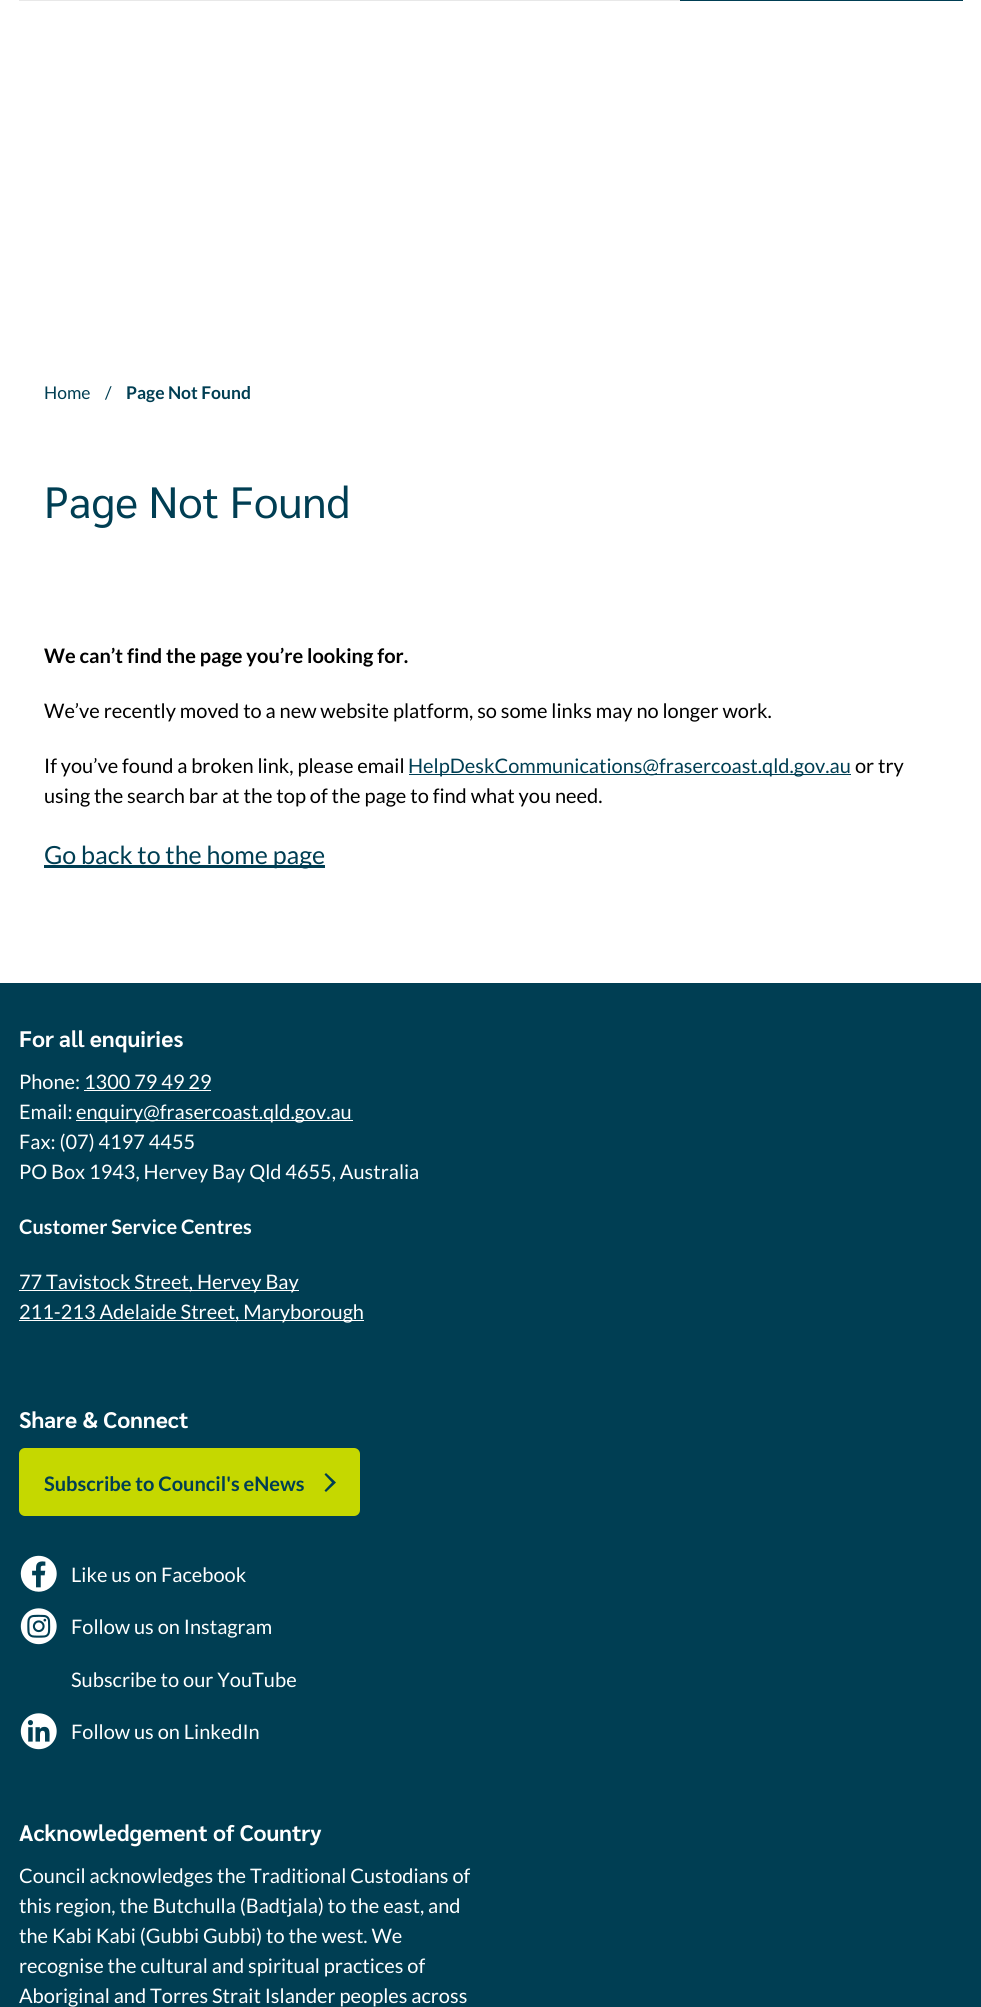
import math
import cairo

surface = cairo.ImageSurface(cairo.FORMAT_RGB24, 981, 2007)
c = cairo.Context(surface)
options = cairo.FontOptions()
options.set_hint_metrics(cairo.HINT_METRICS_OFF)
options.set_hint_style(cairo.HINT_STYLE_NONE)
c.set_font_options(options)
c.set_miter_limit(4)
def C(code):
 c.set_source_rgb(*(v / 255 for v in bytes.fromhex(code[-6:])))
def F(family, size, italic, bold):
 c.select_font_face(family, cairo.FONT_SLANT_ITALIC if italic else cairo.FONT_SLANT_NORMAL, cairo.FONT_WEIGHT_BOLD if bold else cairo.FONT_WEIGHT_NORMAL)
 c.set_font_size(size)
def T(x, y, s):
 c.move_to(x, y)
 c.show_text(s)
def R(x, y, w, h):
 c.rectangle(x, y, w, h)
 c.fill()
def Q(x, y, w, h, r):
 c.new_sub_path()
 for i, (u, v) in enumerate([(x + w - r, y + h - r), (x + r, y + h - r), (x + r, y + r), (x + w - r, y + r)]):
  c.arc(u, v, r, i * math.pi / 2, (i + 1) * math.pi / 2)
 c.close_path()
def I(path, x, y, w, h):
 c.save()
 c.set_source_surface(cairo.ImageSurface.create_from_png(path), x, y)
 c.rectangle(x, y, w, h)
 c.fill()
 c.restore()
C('ffffff')
c.paint()
C('e8e8e8')
R(19,0,661,1)
C('003e53')
R(680,0,283,1)
F('Lato',17.5,0,0)
T(44,399,'Home')
T(105,399,'/')
F('Lato',17.5,0,1)
T(126,399,'Page Not Found')
F('Sarabun',43.75,0,0)
T(44,518,'Page Not Found')
F('Lato',20,0,1)
C('000000')
T(44,663,'We can’t find the page you’re looking for.')
F('Lato',20,0,0)
T(44,718,'We’ve recently moved to a new website platform, so some links may no longer work.')
T(44,773,'If you’ve found a broken link, please email')
C('003e53')
R(409,774,442,1)
T(408,773,'HelpDeskCommunications@frasercoast.qld.gov.au')
C('000000')
T(855,773,'or try')
T(44,803,'using the search bar at the top of the page to find what you need.')
C('003e53')
R(44,865,281,3)
F('Lato',25,0,0)
T(44,864,'Go back to the home page')
R(0,983,981,1024)
F('Sarabun',22.5,0,1)
C('ffffff')
T(19,1047,'For all enquiries')
F('Lato',20,0,0)
T(19,1089,'Phone: 1300 79 49 29')
R(84,1090,127,1)
T(19,1119,'Email:')
R(76,1120,277,1)
T(76,1119,'enquiry@frasercoast.qld.gov.au')
T(19,1149,'Fax: (07) 4197 4455')
T(19,1179,'PO Box 1943, Hervey Bay Qld 4655, Australia')
F('Lato',20,0,1)
T(19,1234,'Customer Service Centres')
R(19,1290,280,1)
F('Lato',20,0,0)
T(19,1289,'77 Tavistock Street, Hervey Bay')
R(19,1320,345,1)
T(19,1319,'211-213 Adelaide Street, Maryborough')
F('Sarabun',22.5,0,1)
T(19,1428,'Share & Connect')
C('c5d800')
Q(19,1448,341,68,6)
c.fill()
F('Lato',20,0,1)
C('003e53')
T(44,1491,'Subscribe to Council\'s eNews')
c.new_path()
c.move_to(326,1492)
c.line_to(324.5,1490.5)
c.line_to(332,1482.5)
c.line_to(324.5,1474.5)
c.line_to(326,1473)
c.line_to(336,1482.5)
c.close_path()
c.fill()
I('1.png',20,1555,37,37)
F('Lato',20,0,0)
C('ffffff')
T(71,1582,'Like us on Facebook')
I('2.png',20,1608,37,37)
T(71,1634,'Follow us on Instagram')
T(71,1687,'Subscribe to our YouTube')
I('3.png',20,1713,37,37)
T(71,1739,'Follow us on LinkedIn')
F('Sarabun',22.5,0,1)
T(19,1841,'Acknowledgement of Country')
F('Lato',20,0,0)
T(19,1883,'Council acknowledges the Traditional Custodians of')
T(19,1913,'this region, the Butchulla (Badtjala) to the east, and')
T(19,1943,'the Kabi Kabi (Gubbi Gubbi) to the west. We')
T(19,1973,'recognise the cultural and spiritual practices of')
T(19,2003,'Aboriginal and Torres Strait Islander peoples across')
surface.write_to_png('o.png')
